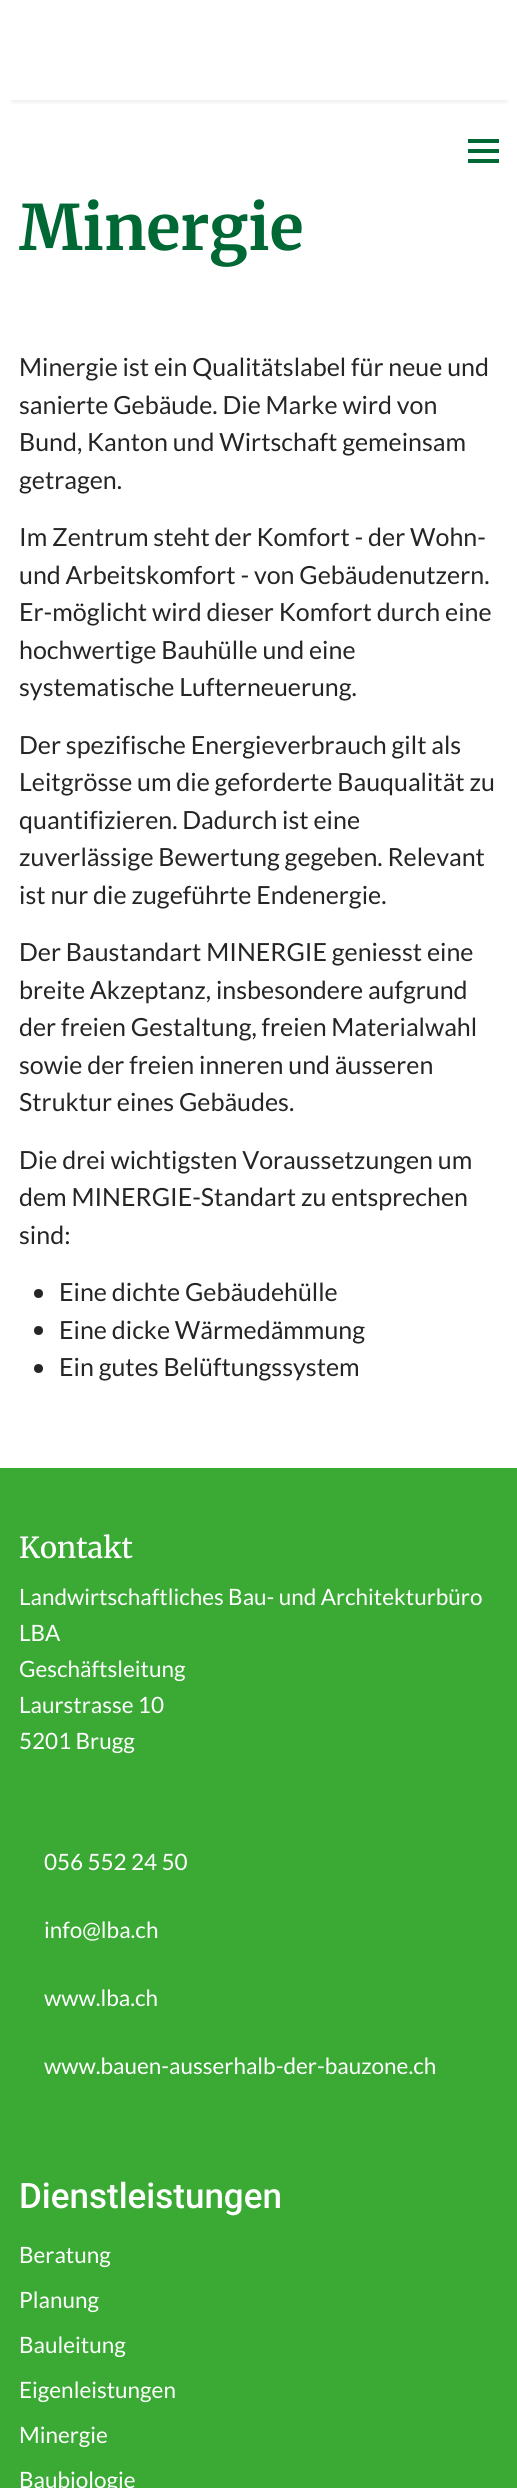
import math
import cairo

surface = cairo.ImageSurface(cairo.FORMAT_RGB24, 517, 2488)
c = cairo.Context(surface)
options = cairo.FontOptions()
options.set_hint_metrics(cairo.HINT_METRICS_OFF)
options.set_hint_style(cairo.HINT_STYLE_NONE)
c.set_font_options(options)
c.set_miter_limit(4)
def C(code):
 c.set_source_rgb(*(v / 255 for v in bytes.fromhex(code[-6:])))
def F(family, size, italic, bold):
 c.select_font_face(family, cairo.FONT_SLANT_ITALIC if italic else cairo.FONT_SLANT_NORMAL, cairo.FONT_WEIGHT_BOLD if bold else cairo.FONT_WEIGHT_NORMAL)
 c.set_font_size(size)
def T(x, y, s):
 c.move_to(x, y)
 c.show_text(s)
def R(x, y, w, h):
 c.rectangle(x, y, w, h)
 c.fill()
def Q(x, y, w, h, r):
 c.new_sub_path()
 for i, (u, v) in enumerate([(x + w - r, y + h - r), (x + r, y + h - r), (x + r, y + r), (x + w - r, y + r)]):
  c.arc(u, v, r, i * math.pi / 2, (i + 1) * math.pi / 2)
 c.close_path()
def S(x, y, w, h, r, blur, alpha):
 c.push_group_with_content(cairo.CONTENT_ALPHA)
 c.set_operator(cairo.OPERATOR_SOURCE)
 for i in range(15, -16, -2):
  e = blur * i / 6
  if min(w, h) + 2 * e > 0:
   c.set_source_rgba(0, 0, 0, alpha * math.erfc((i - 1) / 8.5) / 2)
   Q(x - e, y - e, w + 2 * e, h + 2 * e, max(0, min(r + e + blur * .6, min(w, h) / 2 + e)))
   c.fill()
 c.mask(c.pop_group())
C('ffffff')
c.paint()
c.save()
c.rectangle(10,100,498,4)
c.clip()
C('000000')
S(13,18,492,75,0,6,.6)
c.restore()
C('006834')
R(468,139,31,4)
R(468,149,31,4)
R(468,159,31,4)
F('Merriweather',62.5,0,1)
T(19,250,'Minergie')
F('Lato',25,0,0)
C('252525')
T(19,376,'Minergie ist ein Qualitätslabel für neue und')
T(19,414,'sanierte Gebäude. Die Marke wird von')
T(19,451,'Bund, Kanton und Wirtschaft gemeinsam')
T(19,489,'getragen.')
T(19,546,'Im Zentrum steht der Komfort - der Wohn-')
T(19,584,'und Arbeitskomfort - von Gebäudenutzern.')
T(19,621,'Er-möglicht wird dieser Komfort durch eine')
T(19,659,'hochwertige Bauhülle und eine')
T(19,696,'systematische Lufterneuerung.')
T(19,754,'Der spezifische Energieverbrauch gilt als')
T(19,791,'Leitgrösse um die geforderte Bauqualität zu')
T(19,829,'quantifizieren. Dadurch ist eine')
T(19,866,'zuverlässige Bewertung gegeben. Relevant')
T(19,904,'ist nur die zugeführte Endenergie.')
T(19,961,'Der Baustandart MINERGIE geniesst eine')
T(19,999,'breite Akzeptanz, insbesondere aufgrund')
T(19,1036,'der freien Gestaltung, freien Materialwahl')
T(19,1074,'sowie der freien inneren und äusseren')
T(19,1111,'Struktur eines Gebäudes.')
T(19,1169,'Die drei wichtigsten Voraussetzungen um')
T(19,1206,'dem MINERGIE-Standart zu entsprechen')
T(19,1244,'sind:')
c.new_path()
c.arc(38.5,1293.5,4.5,0,2 * math.pi)
c.fill()
T(59,1301,'Eine dichte Gebäudehülle')
c.new_path()
c.arc(38.5,1330.5,4.5,0,2 * math.pi)
c.fill()
T(59,1339,'Eine dicke Wärmedämmung')
c.new_path()
c.arc(38.5,1368.5,4.5,0,2 * math.pi)
c.fill()
T(59,1376,'Ein gutes Belüftungssystem')
C('3aaa35')
R(0,1468,517,1020)
F('Merriweather Medium',29,0,0)
C('ffffff')
T(19,1558,'Kontakt')
F('Lato',22.5,0,0)
T(19,1605,'Landwirtschaftliches Bau- und Architekturbüro')
T(19,1641,'LBA')
T(19,1677,'Geschäftsleitung')
T(19,1713,'Laurstrasse 10')
T(19,1749,'5201 Brugg')
T(44,1870,'056 552 24 50')
T(44,1938,'info@lba.ch')
T(44,2006,'www.lba.ch')
T(44,2074,'www.bauen-ausserhalb-der-bauzone.ch')
F('Roboto Medium',35,0,0)
T(19,2208,'Dienstleistungen')
F('Lato',22.5,0,0)
T(19,2263,'Beratung')
T(19,2308,'Planung')
T(19,2353,'Bauleitung')
T(19,2398,'Eigenleistungen')
T(19,2443,'Minergie')
T(19,2488,'Baubiologie')
surface.write_to_png('o.png')
